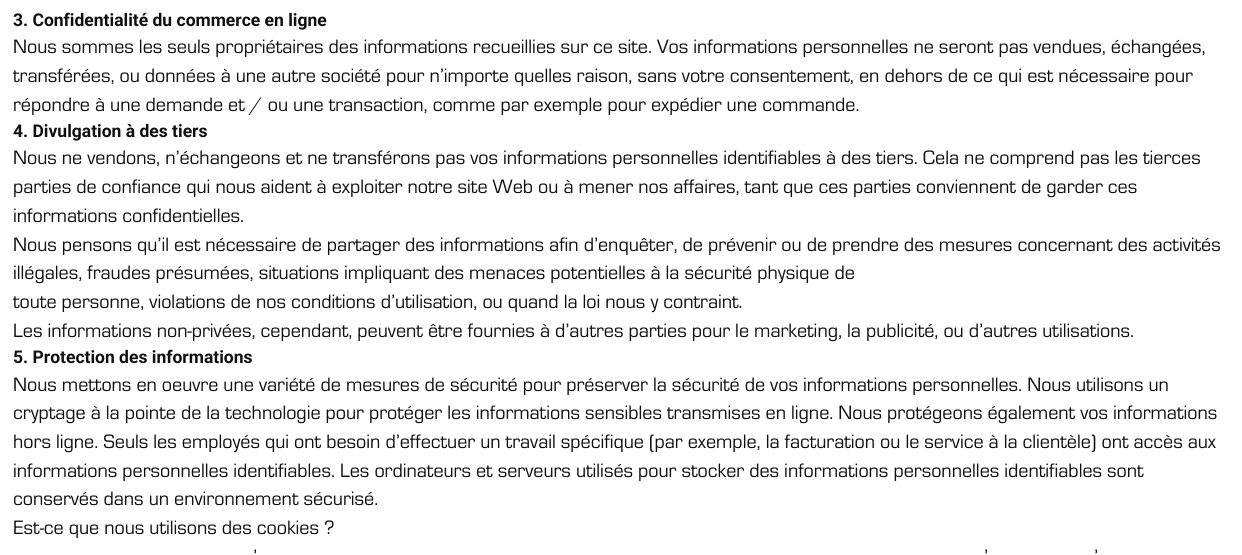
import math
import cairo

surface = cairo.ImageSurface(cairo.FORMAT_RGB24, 1242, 555)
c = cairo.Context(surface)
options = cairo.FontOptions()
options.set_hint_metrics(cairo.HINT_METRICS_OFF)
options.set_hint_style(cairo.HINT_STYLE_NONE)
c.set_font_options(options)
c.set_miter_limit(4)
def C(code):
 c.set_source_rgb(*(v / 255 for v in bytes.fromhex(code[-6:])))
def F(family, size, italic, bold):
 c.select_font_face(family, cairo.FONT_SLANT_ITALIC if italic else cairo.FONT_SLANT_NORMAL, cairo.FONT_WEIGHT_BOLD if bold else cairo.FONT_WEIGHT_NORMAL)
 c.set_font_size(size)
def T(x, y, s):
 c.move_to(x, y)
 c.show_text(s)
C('ffffff')
c.paint()
F('Roboto',17.5,0,1)
C('100f0f')
T(13,26,'3. Confidentialité du commerce en ligne')
F('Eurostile',20.12,0,0)
T(13,53,'Nous sommes les seuls propriétaires des informations recueillies sur ce site. Vos informations personnelles ne seront pas vendues, échangées,')
T(13,82,'transférées, ou données à une autre société pour n’importe quelles raison, sans votre consentement, en dehors de ce qui est nécessaire pour')
T(13,111,'répondre à une demande et / ou une transaction, comme par exemple pour expédier une commande.')
F('Roboto',17.5,0,1)
T(13,137,'4. Divulgation à des tiers')
F('Eurostile',20.12,0,0)
T(13,164,'Nous ne vendons, n’échangeons et ne transférons pas vos informations personnelles identifiables à des tiers. Cela ne comprend pas les tierces')
T(13,193,'parties de confiance qui nous aident à exploiter notre site Web ou à mener nos affaires, tant que ces parties conviennent de garder ces')
T(13,222,'informations confidentielles.')
T(13,251,'Nous pensons qu’il est nécessaire de partager des informations afin d’enquêter, de prévenir ou de prendre des mesures concernant des activités')
T(13,279,'illégales, fraudes présumées, situations impliquant des menaces potentielles à la sécurité physique de')
T(13,308,'toute personne, violations de nos conditions d’utilisation, ou quand la loi nous y contraint.')
T(13,337,'Les informations non-privées, cependant, peuvent être fournies à d’autres parties pour le marketing, la publicité, ou d’autres utilisations.')
F('Roboto',17.5,0,1)
T(13,363,'5. Protection des informations')
F('Eurostile',20.12,0,0)
T(13,391,'Nous mettons en oeuvre une variété de mesures de sécurité pour préserver la sécurité de vos informations personnelles. Nous utilisons un')
T(13,419,'cryptage à la pointe de la technologie pour protéger les informations sensibles transmises en ligne. Nous protégeons également vos informations')
T(13,448,'hors ligne. Seuls les employés qui ont besoin d’effectuer un travail spécifique (par exemple, la facturation ou le service à la clientèle) ont accès aux')
T(13,477,'informations personnelles identifiables. Les ordinateurs et serveurs utilisés pour stocker des informations personnelles identifiables sont')
T(13,505,'conservés dans un environnement sécurisé.')
T(13,534,'Est-ce que nous utilisons des cookies ?')
T(253,563,'’')
T(984,563,'’')
T(1094,563,'’')
surface.write_to_png('o.png')
